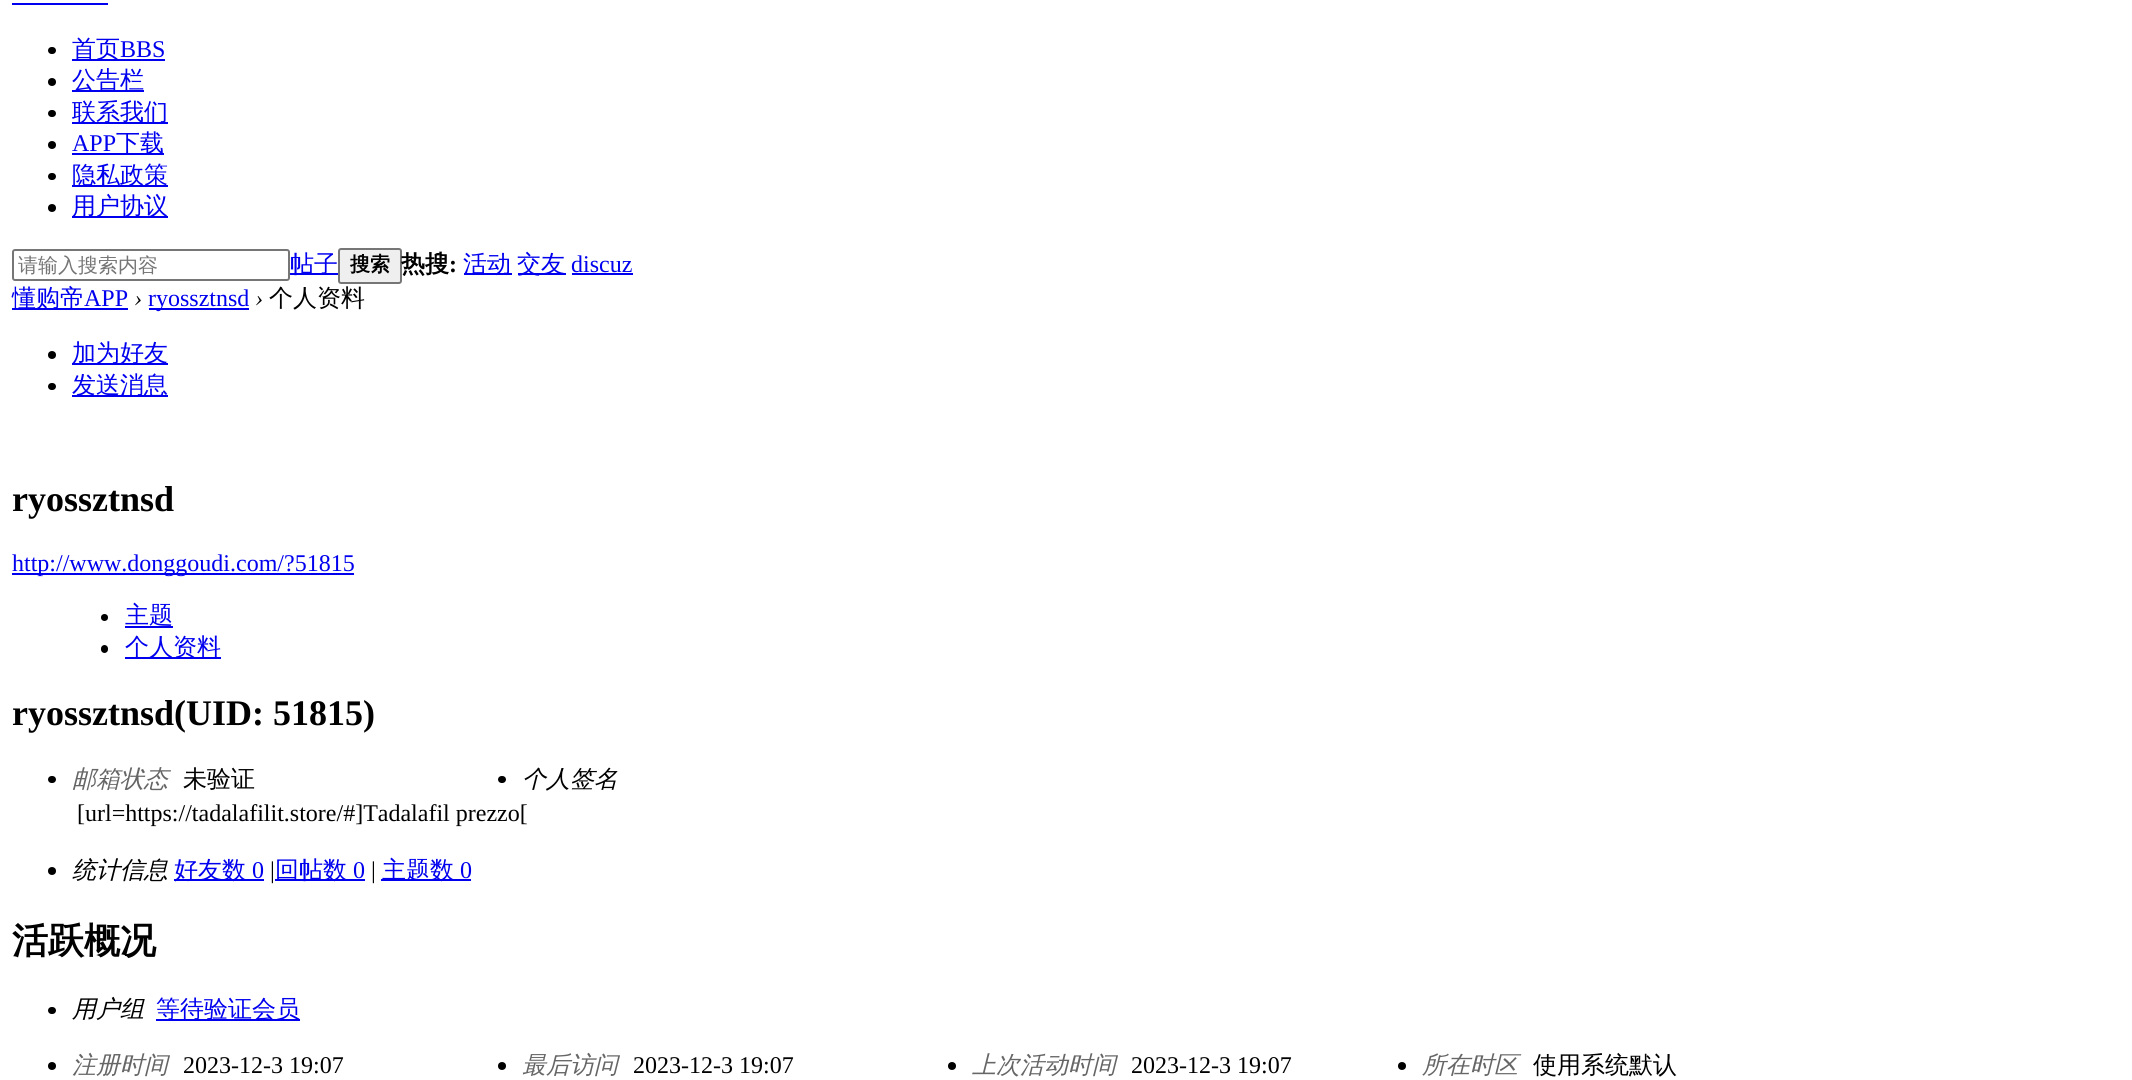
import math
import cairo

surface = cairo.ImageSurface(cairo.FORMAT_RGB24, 2132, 1080)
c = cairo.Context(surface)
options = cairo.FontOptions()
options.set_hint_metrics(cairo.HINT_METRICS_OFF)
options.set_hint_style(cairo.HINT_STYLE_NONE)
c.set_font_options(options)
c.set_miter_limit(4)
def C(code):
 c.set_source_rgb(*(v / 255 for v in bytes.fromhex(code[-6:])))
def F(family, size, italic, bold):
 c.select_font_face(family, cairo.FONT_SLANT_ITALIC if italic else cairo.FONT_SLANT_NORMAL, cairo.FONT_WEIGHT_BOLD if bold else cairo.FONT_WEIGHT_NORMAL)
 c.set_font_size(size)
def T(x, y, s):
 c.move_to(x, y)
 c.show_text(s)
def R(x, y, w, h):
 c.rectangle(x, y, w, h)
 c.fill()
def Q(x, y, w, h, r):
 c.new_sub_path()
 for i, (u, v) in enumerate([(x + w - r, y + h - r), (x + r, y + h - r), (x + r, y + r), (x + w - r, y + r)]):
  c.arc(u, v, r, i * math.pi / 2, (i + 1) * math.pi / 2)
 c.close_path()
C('ffffff')
c.paint()
C('0000ee')
R(12,3,96,2)
C('000000')
Q(48,47,8,7,3.5)
c.fill()
C('0000ee')
R(72,59,93,2)
F('WenQuanYi Zen Hei Medium',24,0,0)
T(72,57,'首页')
F('Liberation Serif',24,0,0)
T(120,57,'BBS')
C('000000')
c.new_path()
c.arc(52,82,4,0,2 * math.pi)
c.fill()
C('0000ee')
R(72,90,72,2)
F('WenQuanYi Zen Hei Medium',24,0,0)
T(72,88,'公告栏')
C('000000')
Q(48,110,8,7,3.5)
c.fill()
C('0000ee')
R(72,122,96,2)
T(72,120,'联系我们')
C('000000')
c.new_path()
c.arc(52,145,4,0,2 * math.pi)
c.fill()
F('Liberation Serif',24,0,0)
C('0000ee')
T(72,151,'APP')
R(72,153,92,2)
F('WenQuanYi Zen Hei Medium',24,0,0)
T(116,151,'下载')
C('000000')
Q(48,173,8,7,3.5)
c.fill()
C('0000ee')
R(72,185,96,2)
T(72,183,'隐私政策')
C('000000')
c.new_path()
c.arc(52,208,4,0,2 * math.pi)
c.fill()
C('0000ee')
R(72,216,96,2)
T(72,214,'用户协议')
Q(13,250,276,30,2)
C('767676')
c.stroke()
F('WenQuanYi Zen Hei Medium',20,0,0)
C('757575')
T(18,272,'请输入搜索内容')
C('0000ee')
R(290,273,48,2)
F('WenQuanYi Zen Hei Medium',24,0,0)
T(290,272,'帖子')
C('efefef')
Q(339,249,62,34,2)
c.fill_preserve()
C('767676')
c.stroke()
F('WenQuanYi Zen Hei',20,0,1)
C('000000')
T(350,271,'搜索')
F('WenQuanYi Zen Hei',24,0,1)
T(401,272,'热搜')
F('Liberation Serif',24,0,1)
T(449,272,':')
C('0000ee')
R(464,273,48,2)
F('WenQuanYi Zen Hei Medium',24,0,0)
T(463,272,'活动')
R(518,273,48,2)
T(517,272,'交友')
F('Liberation Serif',24,0,0)
T(571,272,'discuz')
R(572,273,61,2)
R(12,308,116,2)
F('WenQuanYi Zen Hei Medium',24,0,0)
T(12,306,'懂购帝')
F('Liberation Serif',24,0,0)
T(84,306,'APP')
F('Liberation Serif',24,1,0)
C('000000')
T(134,306,'›')
C('0000ee')
R(149,308,100,2)
F('Liberation Serif',24,0,0)
T(148,306,'ryossztnsd')
F('Liberation Serif',24,1,0)
C('000000')
T(255,306,'›')
F('WenQuanYi Zen Hei Medium',24,0,0)
T(269,306,'个人资料')
c.new_path()
c.arc(52,355,4,0,2 * math.pi)
c.fill()
C('0000ee')
R(72,363,96,2)
T(72,361,'加为好友')
C('000000')
Q(48,383,8,7,3.5)
c.fill()
C('0000ee')
R(72,395,96,2)
T(72,393,'发送消息')
F('Liberation Serif',36,0,1)
C('000000')
T(12,511,'ryossztnsd')
C('0000ee')
R(12,573,342,2)
F('Liberation Serif',24,0,0)
T(12,571,'http://www.donggoudi.com/?51815')
C('000000')
c.new_path()
c.arc(104.5,617.5,3.5,0,2 * math.pi)
c.fill()
F('WenQuanYi Zen Hei Medium',24,0,0)
C('0000ee')
T(125,623,'主题')
R(125,626,48,2)
C('000000')
Q(101,645,7,8,3.5)
c.fill()
C('0000ee')
R(125,657,96,2)
T(125,655,'个人资料')
F('Liberation Serif',36,0,1)
C('000000')
T(12,725,'ryossztnsd(UID: 51815)')
Q(48,776,8,7,3.5)
c.fill()
F('WenQuanYi Zen Hei Medium',24,1,0)
C('666666')
T(72,787,'邮箱状态')
F('WenQuanYi Zen Hei Medium',24,0,0)
C('000000')
T(183,787,'未验证')
Q(498,776,8,7,3.5)
c.fill()
F('WenQuanYi Zen Hei Medium',24,1,0)
T(522,787,'个人签名')
F('Liberation Serif',24,0,0)
T(77,821,'[url=https://tadalafilit.store/#]Tadalafil prezzo[')
c.new_path()
c.arc(52,871,4,0,2 * math.pi)
c.fill()
F('WenQuanYi Zen Hei Medium',24,1,0)
T(72,878,'统计信息')
C('0000ee')
R(174,879,90,2)
F('WenQuanYi Zen Hei Medium',24,0,0)
T(174,878,'好友数')
F('Liberation Serif',24,0,0)
T(252,878,'0')
C('000000')
T(270,878,'|')
C('0000ee')
R(275,879,90,2)
F('WenQuanYi Zen Hei Medium',24,0,0)
T(275,878,'回帖数')
F('Liberation Serif',24,0,0)
T(353,878,'0')
C('000000')
T(371,878,'|')
C('0000ee')
R(381,879,90,2)
F('WenQuanYi Zen Hei Medium',24,0,0)
T(382,878,'主题数')
F('Liberation Serif',24,0,0)
T(460,878,'0')
F('WenQuanYi Zen Hei',36,0,1)
C('000000')
T(12,953,'活跃概况')
Q(48,1007,8,7,3.5)
c.fill()
F('WenQuanYi Zen Hei Medium',24,1,0)
T(72,1017,'用户组')
C('0000ee')
R(156,1019,144,2)
F('WenQuanYi Zen Hei Medium',24,0,0)
T(156,1017,'等待验证会员')
C('000000')
c.new_path()
c.arc(52,1066,4,0,2 * math.pi)
c.fill()
F('WenQuanYi Zen Hei Medium',24,1,0)
C('666666')
T(72,1073,'注册时间')
F('Liberation Serif',24,0,0)
C('000000')
T(183,1073,'2023-12-3 19:07')
c.new_path()
c.arc(502,1066,4,0,2 * math.pi)
c.fill()
F('WenQuanYi Zen Hei Medium',24,1,0)
C('666666')
T(522,1073,'最后访问')
F('Liberation Serif',24,0,0)
C('000000')
T(633,1073,'2023-12-3 19:07')
c.new_path()
c.arc(952,1066,4,0,2 * math.pi)
c.fill()
F('WenQuanYi Zen Hei Medium',24,1,0)
C('666666')
T(972,1073,'上次活动时间')
F('Liberation Serif',24,0,0)
C('000000')
T(1131,1073,'2023-12-3 19:07')
c.new_path()
c.arc(1402,1066,4,0,2 * math.pi)
c.fill()
F('WenQuanYi Zen Hei Medium',24,1,0)
C('666666')
T(1422,1073,'所在时区')
F('WenQuanYi Zen Hei Medium',24,0,0)
C('000000')
T(1533,1073,'使用系统默认')
surface.write_to_png('o.png')
